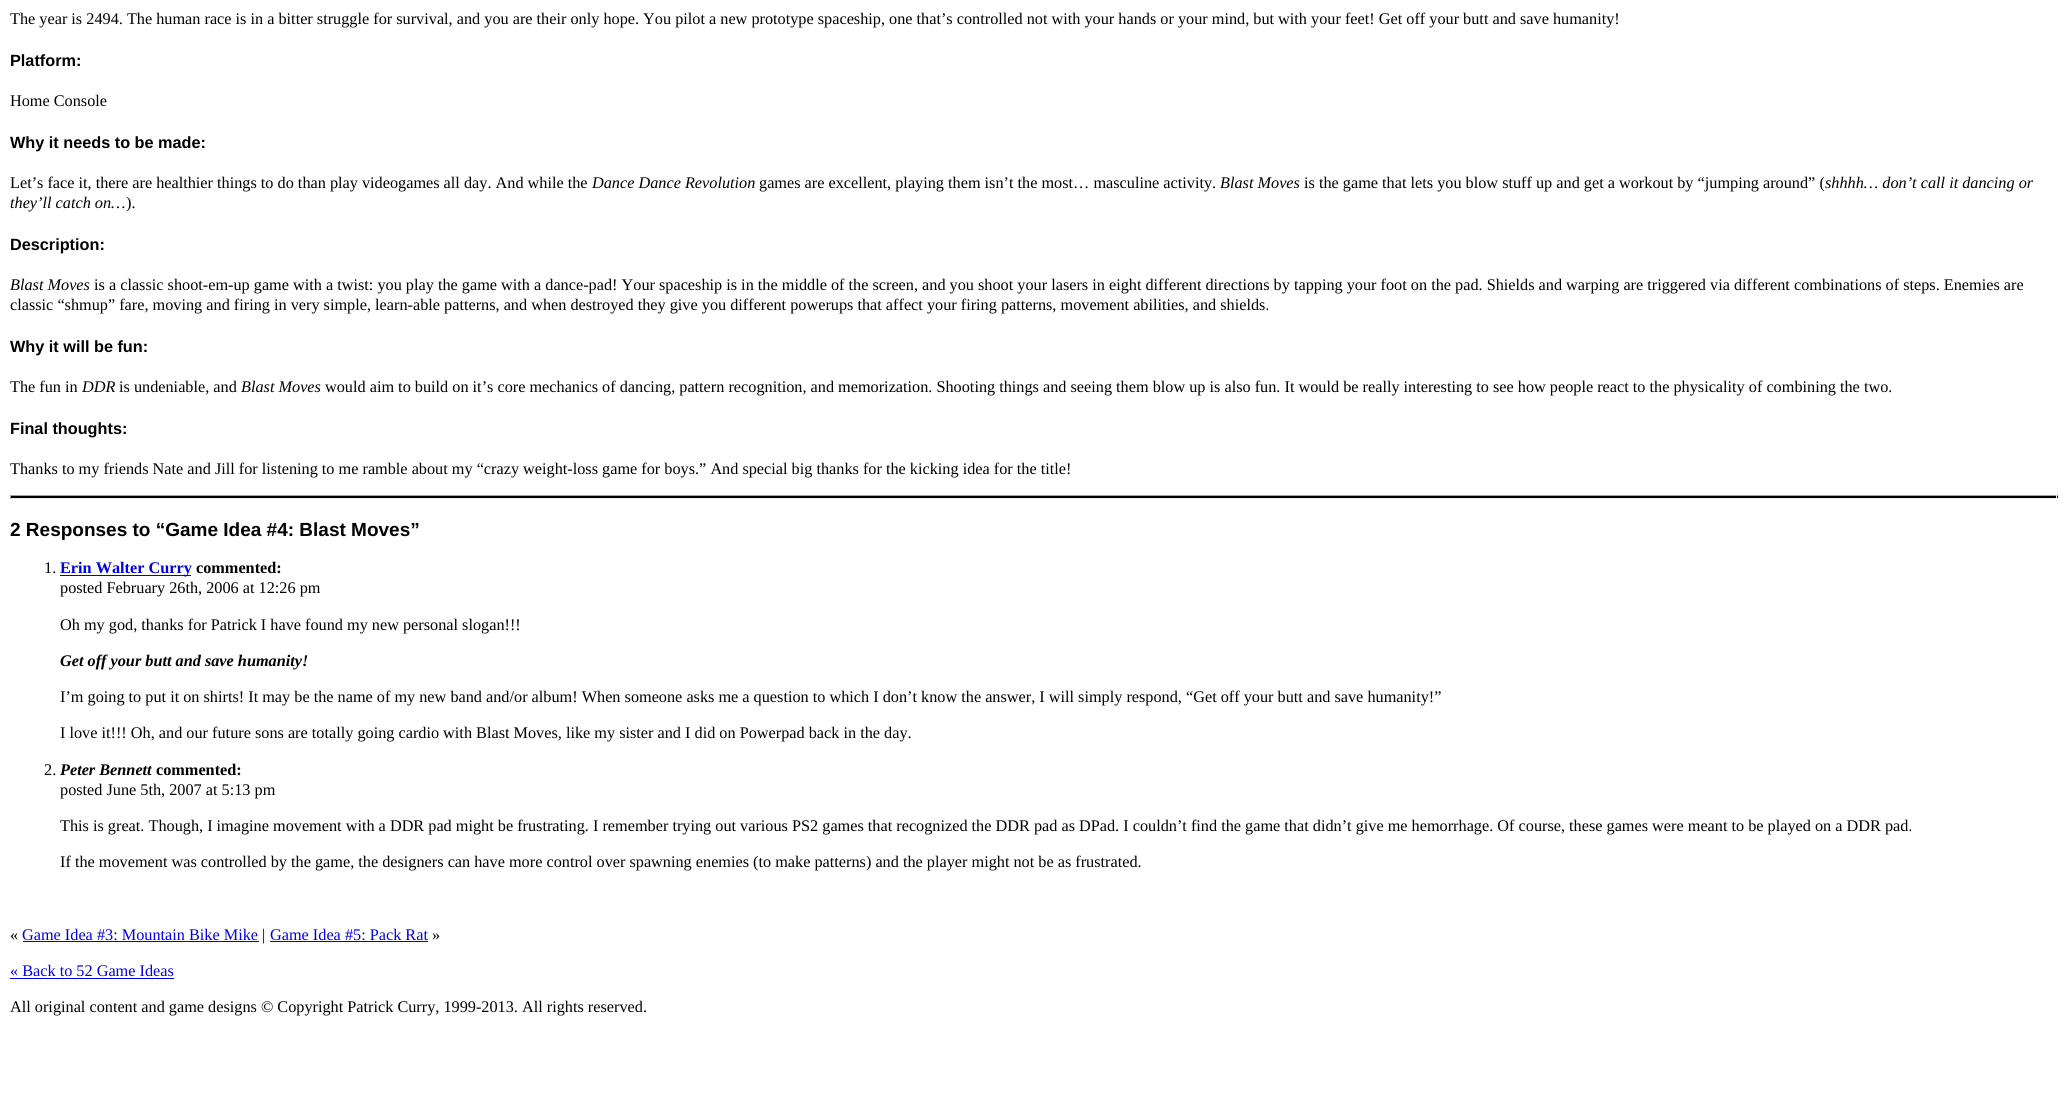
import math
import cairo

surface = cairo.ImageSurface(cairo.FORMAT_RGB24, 2065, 1117)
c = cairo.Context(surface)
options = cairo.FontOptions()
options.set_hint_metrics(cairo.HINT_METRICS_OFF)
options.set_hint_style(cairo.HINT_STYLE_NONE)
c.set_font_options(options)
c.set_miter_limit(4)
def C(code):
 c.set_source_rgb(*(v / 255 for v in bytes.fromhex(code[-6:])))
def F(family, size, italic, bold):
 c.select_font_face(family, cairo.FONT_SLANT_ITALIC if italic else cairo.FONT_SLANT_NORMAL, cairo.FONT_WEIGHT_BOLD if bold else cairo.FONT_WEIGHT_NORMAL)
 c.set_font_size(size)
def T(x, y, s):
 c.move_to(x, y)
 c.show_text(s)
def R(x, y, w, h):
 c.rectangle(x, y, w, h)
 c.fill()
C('ffffff')
c.paint()
F('Liberation Serif',16.25,0,0)
C('000000')
T(10,24,'The year is 2494. The human race is in a bitter struggle for survival, and you are their only hope. You pilot a new prototype spaceship, one that’s controlled not with your hands or your mind, but with your feet! Get off your butt and save humanity!')
F('Liberation Sans',16.25,0,1)
T(10,66,'Platform:')
F('Liberation Serif',16.25,0,0)
T(10,106,'Home Console')
F('Liberation Sans',16.25,0,1)
T(10,148,'Why it needs to be made:')
F('Liberation Serif',16.25,0,0)
T(10,188,'Let’s face it, there are healthier things to do than play videogames all day. And while the')
F('Liberation Serif',16.25,1,0)
T(592,188,'Dance Dance Revolution')
F('Liberation Serif',16.25,0,0)
T(759,188,'games are excellent, playing them isn’t the most… masculine activity.')
F('Liberation Serif',16.25,1,0)
T(1220,188,'Blast Moves')
F('Liberation Serif',16.25,0,0)
T(1304,188,'is the game that lets you blow stuff up and get a workout by “jumping around” (')
F('Liberation Serif',16.25,1,0)
T(1825,188,'shhhh… don’t call it dancing or')
T(10,208,'they’ll catch on…')
F('Liberation Serif',16.25,0,0)
T(126,208,').')
F('Liberation Sans',16.25,0,1)
T(10,250,'Description:')
F('Liberation Serif',16.25,1,0)
T(10,290,'Blast Moves')
F('Liberation Serif',16.25,0,0)
T(94,290,'is a classic shoot-em-up game with a twist: you play the game with a dance-pad! Your spaceship is in the middle of the screen, and you shoot your lasers in eight different directions by tapping your foot on the pad. Shields and warping are triggered via different combinations of steps. Enemies are')
T(10,310,'classic “shmup” fare, moving and firing in very simple, learn-able patterns, and when destroyed they give you different powerups that affect your firing patterns, movement abilities, and shields.')
F('Liberation Sans',16.25,0,1)
T(10,352,'Why it will be fun:')
F('Liberation Serif',16.25,0,0)
T(10,392,'The fun in')
F('Liberation Serif',16.25,1,0)
T(82,392,'DDR')
F('Liberation Serif',16.25,0,0)
T(119,392,'is undeniable, and')
F('Liberation Serif',16.25,1,0)
T(241,392,'Blast Moves')
F('Liberation Serif',16.25,0,0)
T(325,392,'would aim to build on it’s core mechanics of dancing, pattern recognition, and memorization. Shooting things and seeing them blow up is also fun. It would be really interesting to see how people react to the physicality of combining the two.')
F('Liberation Sans',16.25,0,1)
T(10,434,'Final thoughts:')
F('Liberation Serif',16.25,0,0)
T(10,474,'Thanks to my friends Nate and Jill for listening to me ramble about my “crazy weight-loss game for boys.” And special big thanks for the kicking idea for the title!')
R(10,496,2048,2)
C('9f9f9f')
R(10,495,2048,1)
C('eeeeee')
R(2056,495,1,4)
R(10,498,2048,1)
C('9f9f9f')
R(10,495,1,4)
F('Liberation Sans',19,0,1)
C('000000')
T(10,536,'2 Responses to “Game Idea #4: Blast Moves”')
F('Liberation Serif',16.25,0,0)
T(44,573,'1.')
C('0000ee')
R(60,575,131,1)
F('Liberation Serif',16.25,0,1)
T(60,573,'Erin Walter Curry')
C('000000')
T(196,573,'commented:')
F('Liberation Serif',16.25,0,0)
T(60,593,'posted February 26th, 2006 at 12:26 pm')
T(60,630,'Oh my god, thanks for Patrick I have found my new personal slogan!!!')
F('Liberation Serif',16.25,1,1)
T(60,666,'Get off your butt and save humanity!')
F('Liberation Serif',16.25,0,0)
T(60,702,'I’m going to put it on shirts! It may be the name of my new band and/or album! When someone asks me a question to which I don’t know the answer, I will simply respond, “Get off your butt and save humanity!”')
T(60,738,'I love it!!! Oh, and our future sons are totally going cardio with Blast Moves, like my sister and I did on Powerpad back in the day.')
T(44,775,'2.')
F('Liberation Serif',16.25,1,1)
T(60,775,'Peter Bennett')
F('Liberation Serif',16.25,0,1)
T(156,775,'commented:')
F('Liberation Serif',16.25,0,0)
T(60,795,'posted June 5th, 2007 at 5:13 pm')
T(60,831,'This is great. Though, I imagine movement with a DDR pad might be frustrating. I remember trying out various PS2 games that recognized the DDR pad as DPad. I couldn’t find the game that didn’t give me hemorrhage. Of course, these games were meant to be played on a DDR pad.')
T(60,867,'If the movement was controlled by the game, the designers can have more control over spawning enemies (to make patterns) and the player might not be as frustrated.')
T(10,940,'«')
C('0000ee')
T(22,940,'Game Idea #3: Mountain Bike Mike')
R(23,941,236,1)
C('000000')
T(262,940,'|')
C('0000ee')
T(270,940,'Game Idea #5: Pack Rat')
R(270,941,158,1)
C('000000')
T(432,940,'»')
C('0000ee')
T(10,976,'« Back to 52 Game Ideas')
R(10,978,164,1)
C('000000')
T(10,1012,'All original content and game designs © Copyright Patrick Curry, 1999-2013. All rights reserved.')
surface.write_to_png('o.png')
